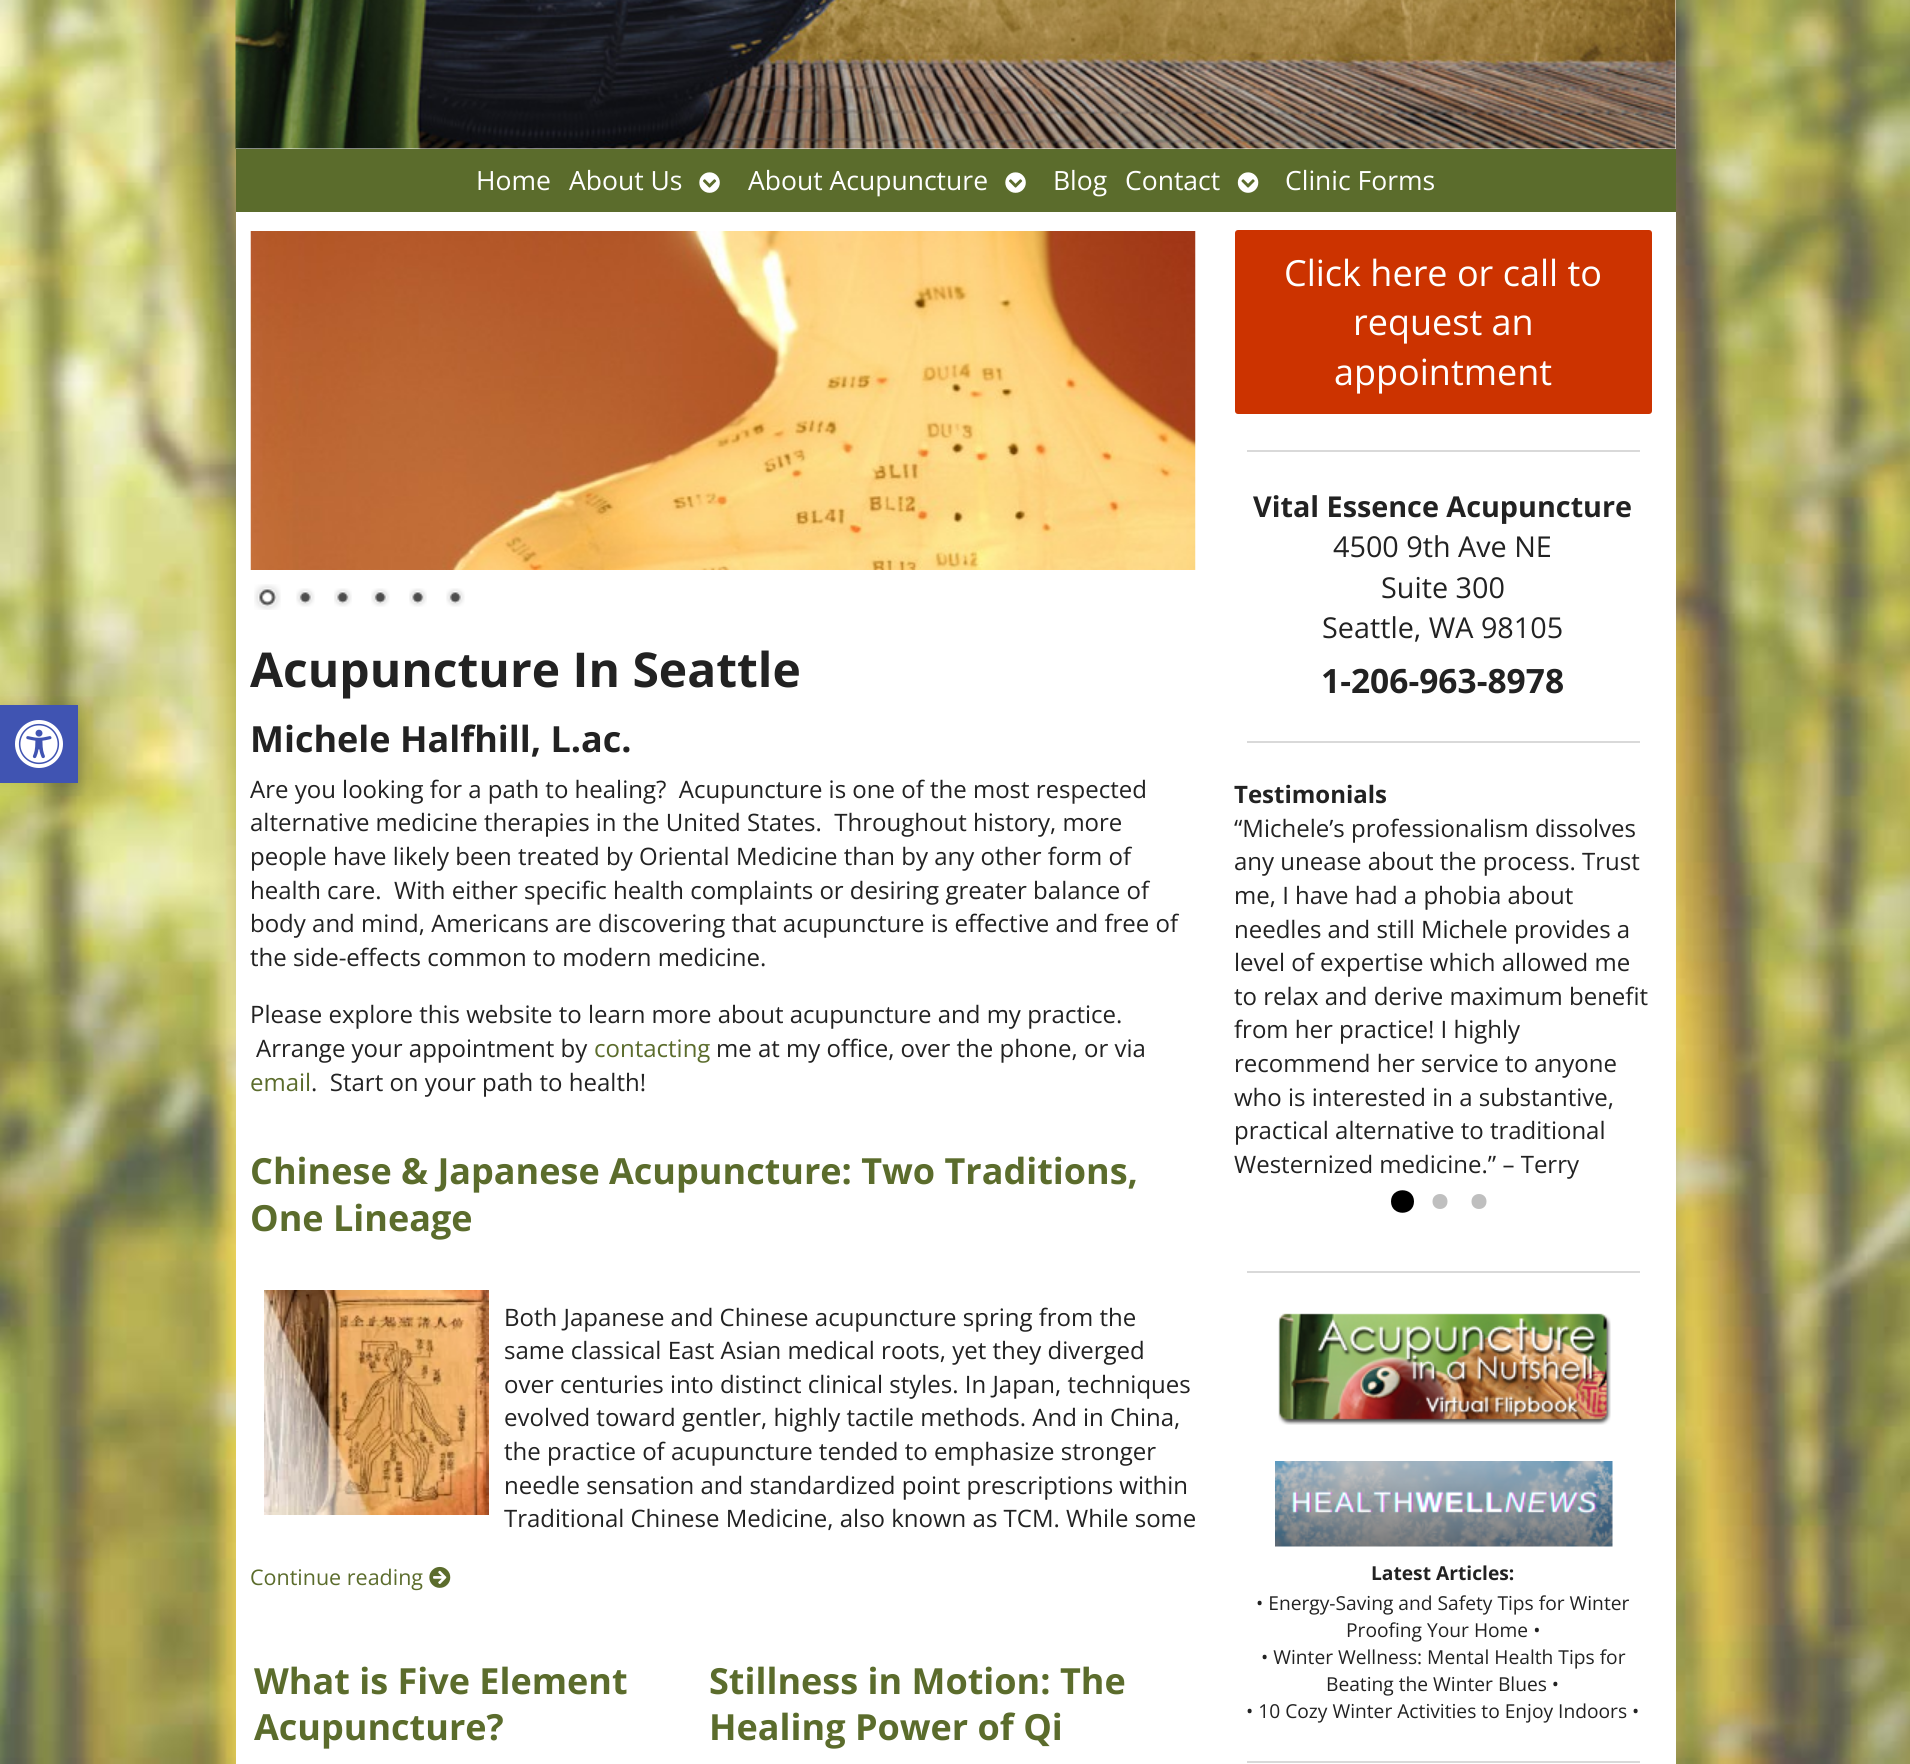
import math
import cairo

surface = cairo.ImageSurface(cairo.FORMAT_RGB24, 1910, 1764)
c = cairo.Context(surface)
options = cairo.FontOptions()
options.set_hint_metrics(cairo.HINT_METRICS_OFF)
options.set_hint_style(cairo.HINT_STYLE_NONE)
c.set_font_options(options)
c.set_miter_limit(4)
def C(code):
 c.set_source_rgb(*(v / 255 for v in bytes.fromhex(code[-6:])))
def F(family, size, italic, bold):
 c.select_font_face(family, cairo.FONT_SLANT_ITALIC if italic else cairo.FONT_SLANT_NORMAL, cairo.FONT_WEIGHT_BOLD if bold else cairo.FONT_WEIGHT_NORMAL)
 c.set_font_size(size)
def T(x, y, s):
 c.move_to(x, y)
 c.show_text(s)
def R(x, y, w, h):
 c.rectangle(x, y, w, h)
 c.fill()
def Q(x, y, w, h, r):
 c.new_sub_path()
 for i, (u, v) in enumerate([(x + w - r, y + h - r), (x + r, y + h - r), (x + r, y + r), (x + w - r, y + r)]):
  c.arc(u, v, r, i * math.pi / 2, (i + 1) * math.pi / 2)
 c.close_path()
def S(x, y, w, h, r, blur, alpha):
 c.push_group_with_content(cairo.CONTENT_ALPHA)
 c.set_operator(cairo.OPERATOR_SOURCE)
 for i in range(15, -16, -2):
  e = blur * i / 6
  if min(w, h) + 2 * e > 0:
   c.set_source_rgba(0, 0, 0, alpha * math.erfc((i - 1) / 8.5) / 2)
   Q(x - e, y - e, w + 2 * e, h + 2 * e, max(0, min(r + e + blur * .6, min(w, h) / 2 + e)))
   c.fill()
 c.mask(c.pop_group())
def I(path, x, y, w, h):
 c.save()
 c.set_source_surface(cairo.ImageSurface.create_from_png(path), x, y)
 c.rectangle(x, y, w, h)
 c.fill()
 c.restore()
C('ffffff')
c.paint()
I('1.png',0,0,1910,1764)
C('000000')
S(0,705,78,78,0,7.5,.1)
C('4054b2')
R(0,705,78,78)
I('2.png',15,720,48,48)
C('ffffff')
R(236,0,1440,1764)
I('3.png',235,0,1441,149)
C('5b6c2c')
R(236,149,1440,63)
F('Open Sans',26.5,0,0)
C('ffffff')
T(476,190,'Home')
T(569,190,'About Us')
I('4.png',699,172,21,21)
T(748,190,'About Acupuncture')
I('4.png',1005,172,21,21)
T(1053,190,'Blog')
T(1125,190,'Contact')
I('5.png',1237,172,22,21)
T(1285,190,'Clinic Forms')
I('6.png',250,231,946,339)
I('7.png',254,584,27,26)
I('8.png',296,588,19,19)
I('9.png',334,588,18,19)
I('8.png',371,588,19,19)
I('10.png',409,588,18,19)
I('8.png',446,588,19,19)
F('Open Sans',48,0,1)
C('222222')
T(250,687,'Acupuncture In Seattle')
F('Open Sans',36,0,1)
T(250,752,'Michele Halfhill, L.ac.')
F('Open Sans',24,0,0)
T(250,798,'Are you looking for a path to healing?  Acupuncture is one of the most respected')
T(250,831,'alternative medicine therapies in the United States.  Throughout history, more')
T(250,865,'people have likely been treated by Oriental Medicine than by any other form of')
T(250,899,'health care.  With either specific health complaints or desiring greater balance of')
T(250,932,'body and mind, Americans are discovering that acupuncture is effective and free of')
T(250,966,'the side-effects common to modern medicine.')
T(250,1023,'Please explore this website to learn more about acupuncture and my practice.')
T(256,1057,'Arrange your appointment by')
C('5b6c2c')
T(594,1057,'contacting')
C('222222')
T(716,1057,'me at my office, over the phone, or via')
C('5b6c2c')
T(250,1091,'email')
C('222222')
T(311,1091,'.  Start on your path to health!')
F('Open Sans',36,0,1)
C('5b6c2c')
T(250,1184,'Chinese & Japanese Acupuncture: Two Traditions,')
T(250,1231,'One Lineage')
I('11.png',264,1290,225,225)
F('Open Sans',24,0,0)
C('222222')
T(504,1326,'Both Japanese and Chinese acupuncture spring from the')
T(504,1359,'same classical East Asian medical roots, yet they diverged')
T(504,1393,'over centuries into distinct clinical styles. In Japan, techniques')
T(504,1426,'evolved toward gentler, highly tactile methods. And in China,')
T(504,1460,'the practice of acupuncture tended to emphasize stronger')
T(504,1494,'needle sensation and standardized point prescriptions within')
T(504,1527,'Traditional Chinese Medicine, also known as TCM. While some')
F('Open Sans',21.5,0,0)
C('5b6c2c')
T(250,1585,'Continue reading')
I('12.png',429,1566,22,22)
F('Open Sans',36,0,1)
T(254,1694,'What is Five Element')
T(254,1740,'Acupuncture?')
T(709,1694,'Stillness in Motion: The')
T(709,1740,'Healing Power of Qi')
C('cc3300')
Q(1235,230,417,184,3)
c.fill()
F('Open Sans',36,0,0)
C('ffffff')
T(1284,286,'Click here or call to')
T(1353,335,'request an')
T(1334,385,'appointment')
C('d9d9d9')
R(1247,450,393,2)
F('Open Sans',28.75,0,1)
C('222222')
T(1253,517,'Vital Essence Acupuncture')
F('Open Sans',28.75,0,0)
T(1333,557,'4500 9th Ave NE')
T(1381,598,'Suite 300')
T(1322,638,'Seattle, WA 98105')
F('Open Sans',33.5,0,1)
T(1321,693,'1-206-963-8978')
C('d9d9d9')
R(1247,741,393,2)
F('Open Sans',24,0,1)
C('222222')
T(1234,803,'Testimonials')
F('Open Sans',24,0,0)
T(1234,837,'“Michele’s professionalism dissolves')
T(1234,870,'any unease about the process. Trust')
T(1234,904,'me, I have had a phobia about')
T(1234,938,'needles and still Michele provides a')
T(1234,971,'level of expertise which allowed me')
T(1234,1005,'to relax and derive maximum benefit')
T(1234,1038,'from her practice! I highly')
T(1234,1072,'recommend her service to anyone')
T(1234,1106,'who is interested in a substantive,')
T(1234,1139,'practical alternative to traditional')
T(1234,1173,'Westernized medicine.” – Terry')
C('000000')
c.new_path()
c.move_to(1414,1201.5)
c.curve_to(1414,1186.5,1391,1186.5,1391,1201.5)
c.curve_to(1391,1216.5,1414,1216.5,1414,1201.5)
c.close_path()
c.fill()
C('bfbfbf')
c.new_path()
c.move_to(1447.5,1201.5)
c.curve_to(1447.5,1191.5,1432.5,1191.5,1432.5,1201.5)
c.curve_to(1432.5,1211.5,1447.5,1211.5,1447.5,1201.5)
c.close_path()
c.move_to(1486.5,1201.5)
c.curve_to(1486.5,1191.5,1471.5,1191.5,1471.5,1201.5)
c.curve_to(1471.5,1211.5,1486.5,1211.5,1486.5,1201.5)
c.close_path()
c.fill()
C('d9d9d9')
R(1247,1271,393,2)
I('13.png',1278,1313,333,112)
I('14.png',1275,1461,338,86)
F('Open Sans',19.2,0,1)
C('222222')
T(1371,1580,'Latest Articles:')
F('Open Sans',19.2,0,0)
T(1256,1610,'• Energy-Saving and Safety Tips for Winter')
T(1346,1637,'Proofing Your Home •')
T(1261,1664,'• Winter Wellness: Mental Health Tips for')
T(1326,1691,'Beating the Winter Blues •')
T(1246,1718,'• 10 Cozy Winter Activities to Enjoy Indoors •')
C('d9d9d9')
R(1247,1761,393,2)
surface.write_to_png('o.png')
